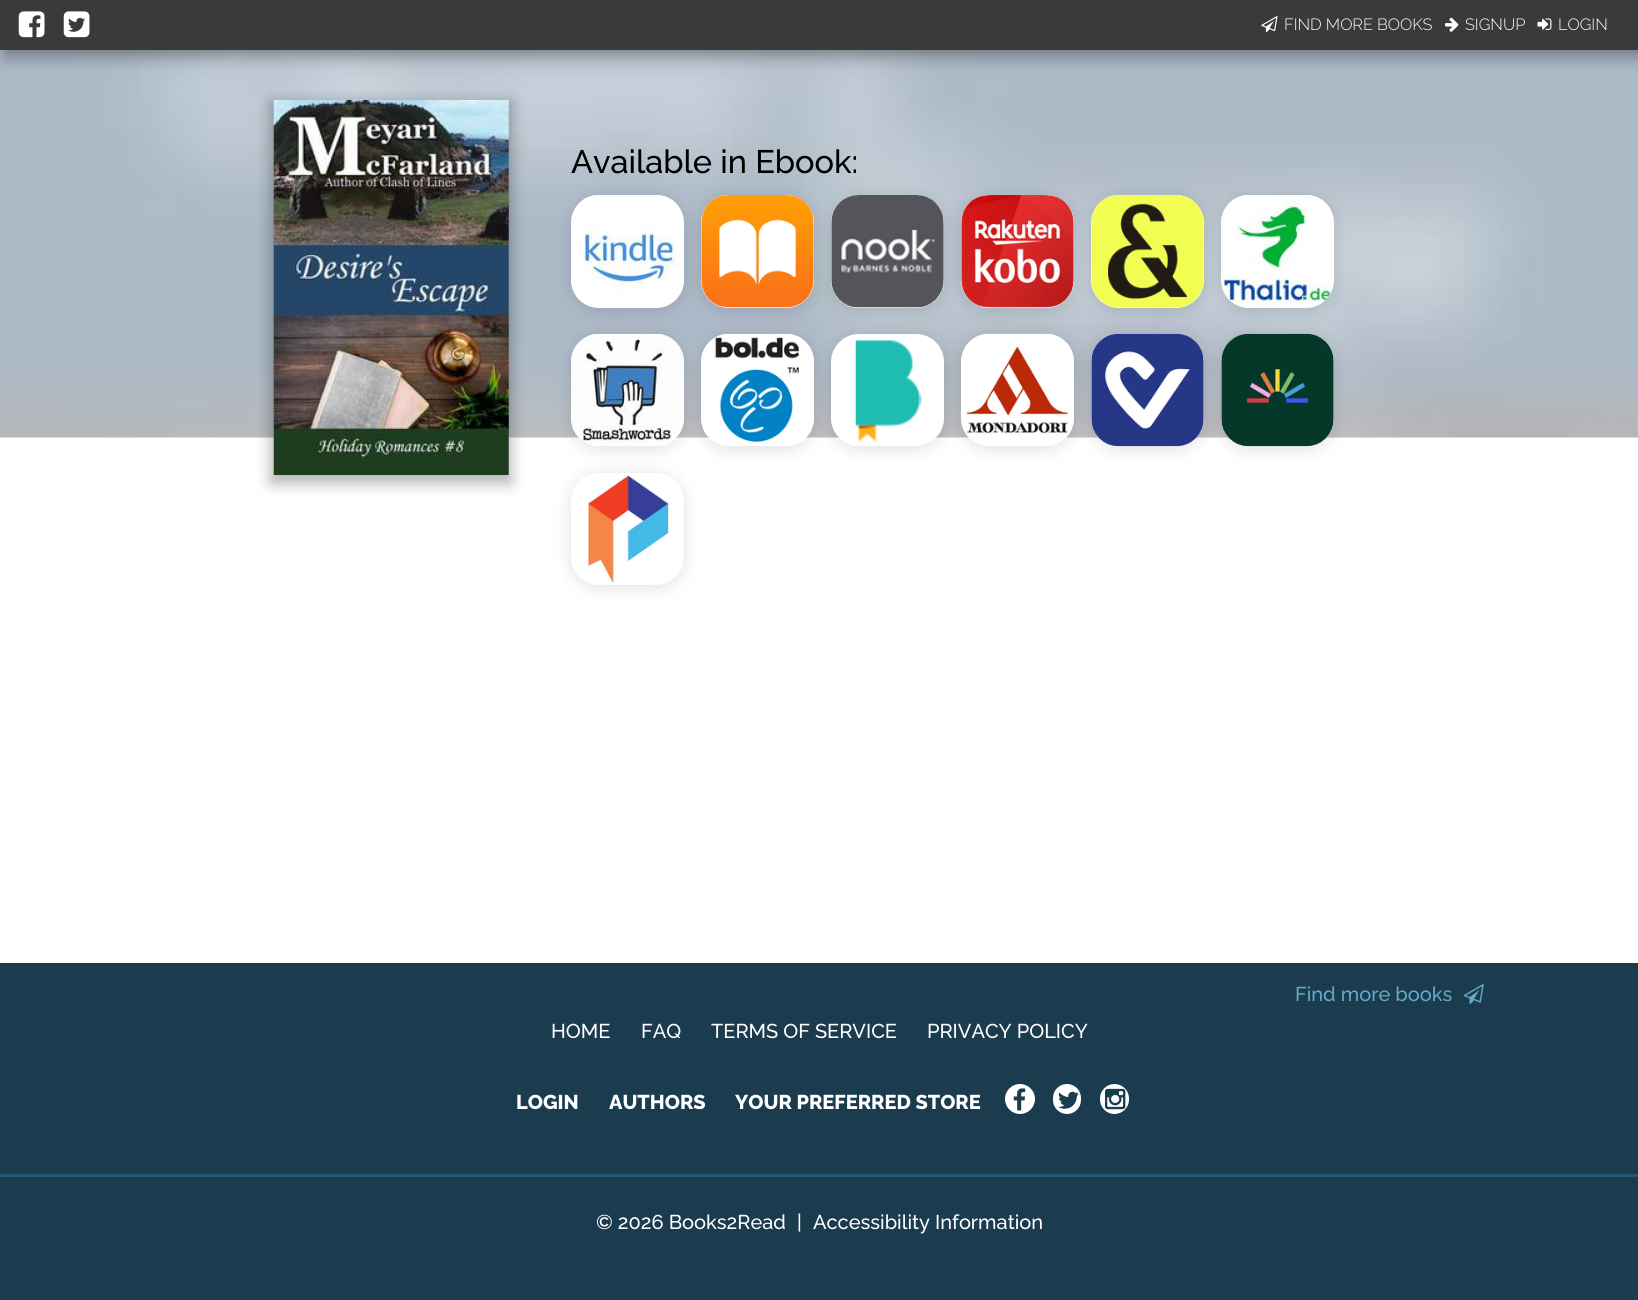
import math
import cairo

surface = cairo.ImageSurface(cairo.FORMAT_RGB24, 1638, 1300)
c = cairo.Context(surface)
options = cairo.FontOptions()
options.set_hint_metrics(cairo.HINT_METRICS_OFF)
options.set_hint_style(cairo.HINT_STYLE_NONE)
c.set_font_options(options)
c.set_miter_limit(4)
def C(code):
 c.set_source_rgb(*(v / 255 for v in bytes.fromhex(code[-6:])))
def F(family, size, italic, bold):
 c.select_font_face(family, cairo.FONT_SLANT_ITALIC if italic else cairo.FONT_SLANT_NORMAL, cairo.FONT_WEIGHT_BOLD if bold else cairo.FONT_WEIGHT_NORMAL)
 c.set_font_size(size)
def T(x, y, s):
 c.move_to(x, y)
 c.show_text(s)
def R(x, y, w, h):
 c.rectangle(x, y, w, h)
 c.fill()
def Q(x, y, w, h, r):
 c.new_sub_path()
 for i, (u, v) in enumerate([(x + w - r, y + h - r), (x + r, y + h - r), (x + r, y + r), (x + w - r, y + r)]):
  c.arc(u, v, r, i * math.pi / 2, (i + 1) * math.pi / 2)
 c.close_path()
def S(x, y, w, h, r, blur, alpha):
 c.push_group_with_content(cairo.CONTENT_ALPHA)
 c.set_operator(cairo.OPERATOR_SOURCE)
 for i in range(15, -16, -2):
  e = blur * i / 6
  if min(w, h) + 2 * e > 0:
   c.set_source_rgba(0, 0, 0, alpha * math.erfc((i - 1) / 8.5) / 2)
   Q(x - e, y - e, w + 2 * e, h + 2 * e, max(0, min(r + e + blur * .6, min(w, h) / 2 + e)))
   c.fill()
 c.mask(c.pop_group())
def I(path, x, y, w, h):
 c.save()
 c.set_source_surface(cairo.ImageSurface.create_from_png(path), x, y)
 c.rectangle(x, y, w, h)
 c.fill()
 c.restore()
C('ffffff')
c.paint()
I('1.png',0,50,1638,388)
C('000000')
S(5,5,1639,50,0,9,.4)
C('3a3a3a')
R(0,0,1638,50)
I('2.png',18,11,27,27)
I('3.png',63,11,27,27)
I('4.png',1261,16,17,17)
F('Raleway Light',16.25,0,0)
C('ffffff')
T(1284,30,'FIND MORE BOOKS')
I('5.png',1445,17,14,15)
T(1465,30,'SIGNUP')
I('6.png',1537,18,15,12)
T(1558,30,'LOGIN')
C('000000')
S(271,103,240,380,0,7.5,.3)
I('7.png',273,100,236,375)
S(569,195,117,118,30,7.5,.1)
C('ffffff')
Q(571,195,113,113,28)
c.fill()
I('8.png',571,195,113,112)
C('000000')
S(699,195,117,118,30,7.5,.1)
C('ffffff')
Q(701,195,113,113,28)
c.fill()
I('9.png',701,195,113,113)
C('000000')
S(829,195,117,118,30,7.5,.1)
F('Raleway Medium',32.5,0,0)
C('000000')
T(571,173,'Available in Ebook:')
C('ffffff')
Q(831,195,113,113,28)
c.fill()
I('10.png',831,195,113,113)
C('000000')
S(959,195,117,118,30,7.5,.1)
C('ffffff')
Q(961,195,113,113,28)
c.fill()
I('11.png',961,195,113,113)
C('000000')
S(1089,195,117,118,30,7.5,.1)
C('ffffff')
Q(1091,195,113,113,28)
c.fill()
I('12.png',1091,195,113,113)
C('000000')
S(1219,195,117,118,30,7.5,.1)
C('ffffff')
Q(1221,195,113,113,28)
c.fill()
I('13.png',1221,195,113,113)
C('000000')
S(569,334,117,117,30,7.5,.1)
C('ffffff')
Q(571,334,113,112,28)
c.fill()
I('14.png',571,333,113,113)
C('000000')
S(699,334,117,117,30,7.5,.1)
C('ffffff')
Q(701,334,113,112,28)
c.fill()
I('15.png',701,333,113,109)
C('000000')
S(829,334,117,117,30,7.5,.1)
C('ffffff')
Q(831,334,113,112,28)
c.fill()
C('000000')
S(959,334,117,117,30,7.5,.1)
C('ffffff')
Q(961,334,113,112,28)
c.fill()
I('16.png',961,333,113,106)
C('000000')
S(1089,334,117,117,30,7.5,.1)
C('ffffff')
Q(1091,334,113,112,28)
c.fill()
I('17.png',1091,333,113,114)
C('000000')
S(1219,334,117,117,30,7.5,.1)
C('ffffff')
Q(1221,334,113,112,28)
c.fill()
I('18.png',1221,333,113,114)
I('19.png',855,338,67,104)
C('000000')
S(569,473,117,117,30,7.5,.1)
C('ffffff')
Q(571,473,113,112,28)
c.fill()
I('20.png',588,475,81,108)
C('1b3b4f')
R(0,963,1638,337)
F('Raleway Medium',20,0,0)
C('63aac5')
T(1295,1001,'Find more books')
I('21.png',1463,984,21,20)
C('ffffff')
T(551,1038,'HOME')
T(641,1038,'FAQ')
T(711,1038,'TERMS OF SERVICE')
T(927,1038,'PRIVACY POLICY')
F('Raleway ExtraBold',20,0,0)
T(516,1109,'LOGIN')
T(609,1109,'AUTHORS')
T(735,1109,'YOUR PREFERRED STORE')
c.new_path()
c.arc(1020,1099,15,0,2 * math.pi)
c.fill()
I('22.png',1013,1088,13,23)
Q(1053,1084,28,30,14)
c.fill()
I('23.png',1058,1091,21,18)
Q(1100,1084,29,30,14.5)
c.fill()
I('24.png',1105,1088,21,22)
C('285775')
R(0,1174,1638,3)
F('Raleway Medium',20,0,0)
C('ffffff')
T(596,1229,'© 2026 Books2Read')
T(797,1229,'|')
T(813,1229,'Accessibility Information')
surface.write_to_png('o.png')
